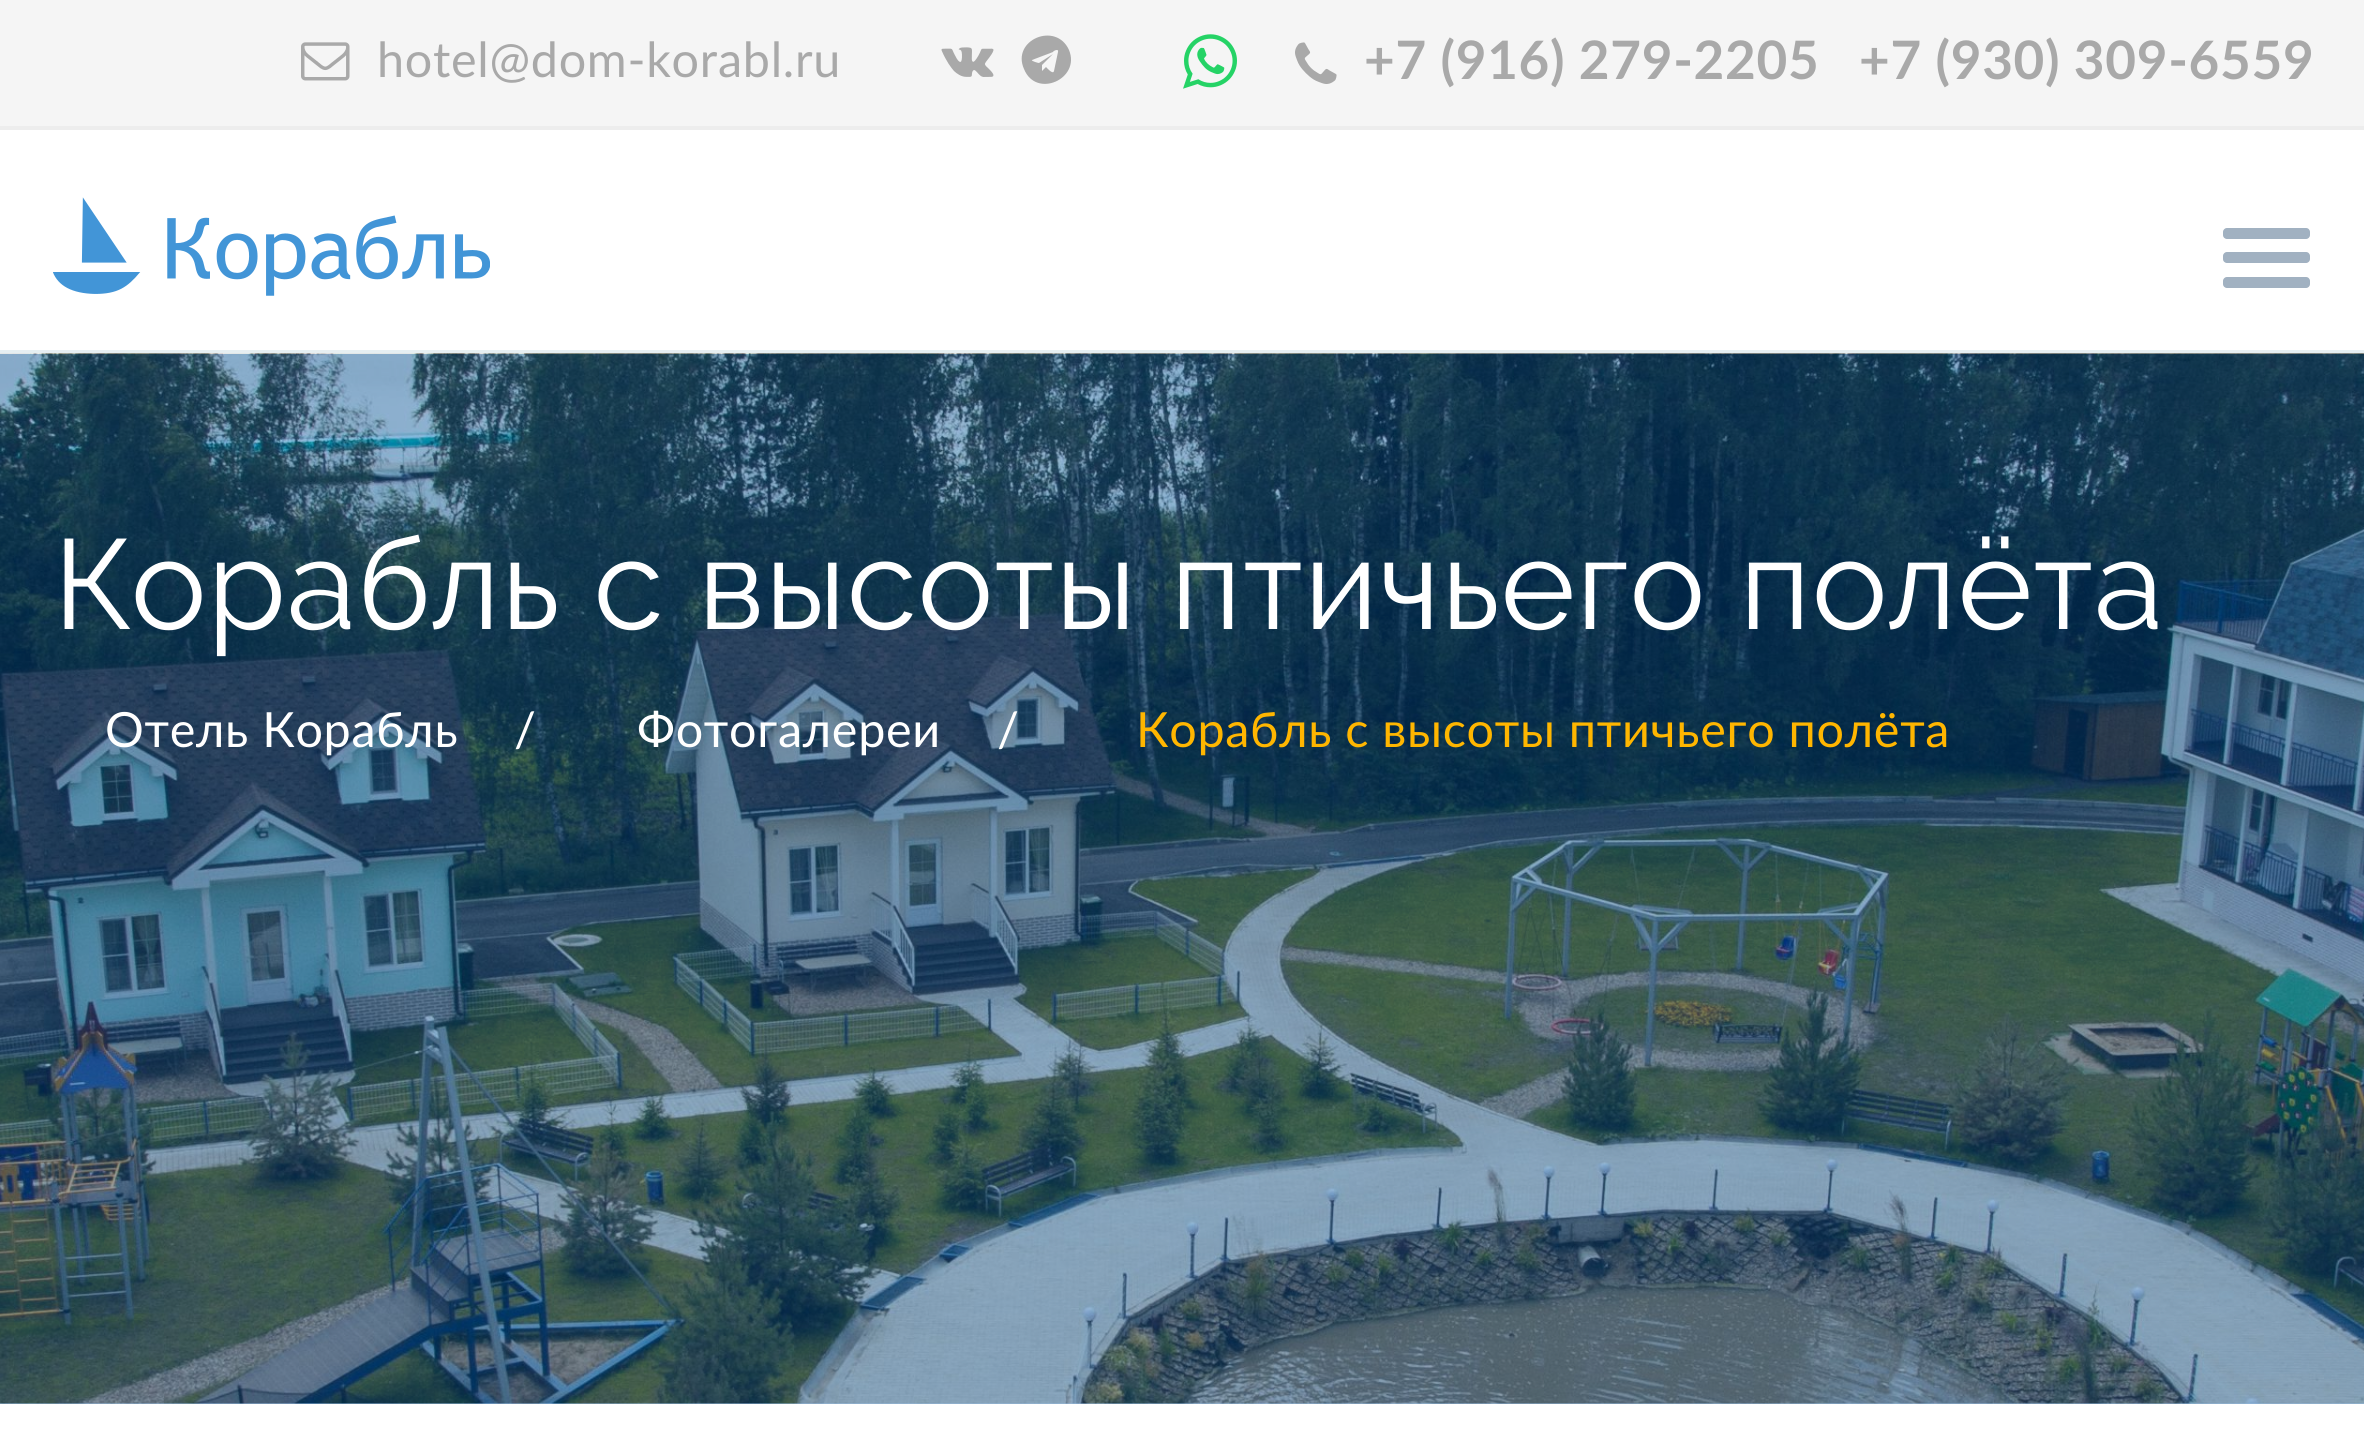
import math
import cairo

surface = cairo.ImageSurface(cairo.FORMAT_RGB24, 2364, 1449)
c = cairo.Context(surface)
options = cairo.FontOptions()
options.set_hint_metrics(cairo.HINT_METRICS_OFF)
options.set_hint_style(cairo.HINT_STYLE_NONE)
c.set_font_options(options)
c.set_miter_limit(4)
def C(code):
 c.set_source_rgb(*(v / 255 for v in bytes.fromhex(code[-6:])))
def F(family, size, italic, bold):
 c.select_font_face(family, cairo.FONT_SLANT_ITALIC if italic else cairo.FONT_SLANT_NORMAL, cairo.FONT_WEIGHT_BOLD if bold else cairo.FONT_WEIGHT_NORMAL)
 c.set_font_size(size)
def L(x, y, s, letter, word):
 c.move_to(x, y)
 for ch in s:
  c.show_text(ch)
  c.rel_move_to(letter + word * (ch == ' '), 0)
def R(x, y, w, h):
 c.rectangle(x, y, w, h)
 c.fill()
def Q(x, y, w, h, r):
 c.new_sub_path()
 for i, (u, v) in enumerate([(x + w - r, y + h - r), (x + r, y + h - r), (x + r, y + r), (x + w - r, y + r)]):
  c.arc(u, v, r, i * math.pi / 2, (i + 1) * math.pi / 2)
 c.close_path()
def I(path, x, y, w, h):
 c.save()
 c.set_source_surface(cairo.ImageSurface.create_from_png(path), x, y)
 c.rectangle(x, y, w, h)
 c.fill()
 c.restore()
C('ffffff')
c.paint()
C('99bdde')
R(0,1403,2364,1)
C('f5f5f5')
R(0,0,2364,126)
C('ededed')
R(0,126,2364,4)
I('1.png',301,42,49,39)
F('Lato',48.5,0,0)
C('a9a9a9')
L(377,77,'hotel@dom-korabl.ru',.7,0)
I('2.png',941,47,53,30)
c.new_path()
c.move_to(1054,71)
c.line_to(1058,52)
c.curve_to(1059,48,1053,51,1053,52)
c.line_to(1032,60)
c.curve_to(1031,61,1038,63,1039,63)
c.line_to(1053,54)
c.curve_to(1053,54,1054,54,1053,54)
c.line_to(1042,65)
c.line_to(1042,71)
c.line_to(1046,67)
c.curve_to(1047,68,1053,75,1054,71)
c.close_path()
c.move_to(1069,50)
c.curve_to(1081,79,1036,99,1024,69)
c.curve_to(1011,40,1056,21,1069,50)
c.close_path()
c.fill()
I('3.png',1183,34,54,55)
I('4.png',1295,42,42,42)
F('Lato',53,0,1)
L(1364,79,'+7 (916) 279-2205',.7,0)
L(1859,79,'+7 (930) 309-6559',.7,0)
C('e6eff2')
R(0,350,2364,4)
I('5.png',53,197,437,99)
C('a1b1c1')
Q(2223,228,87,11,4)
c.fill()
Q(2223,252,87,11,4)
c.fill()
Q(2223,277,87,11,4)
c.fill()
I('6.png',0,353,2364,1051)
F('Raleway',127.4,0,0)
C('ffffff')
L(53,629,'Корабль с высоты птичьего полёта',.7,0)
F('Lato',48.5,0,0)
L(105,747,'Отель Корабль',.7,0)
L(514,747,'/',.7,0)
L(637,747,'Фотогалереи',.7,0)
L(997,747,'/',.7,0)
C('ffb600')
L(1136,747,'Корабль с высоты птичьего полёта',.7,0)
surface.write_to_png('o.png')
